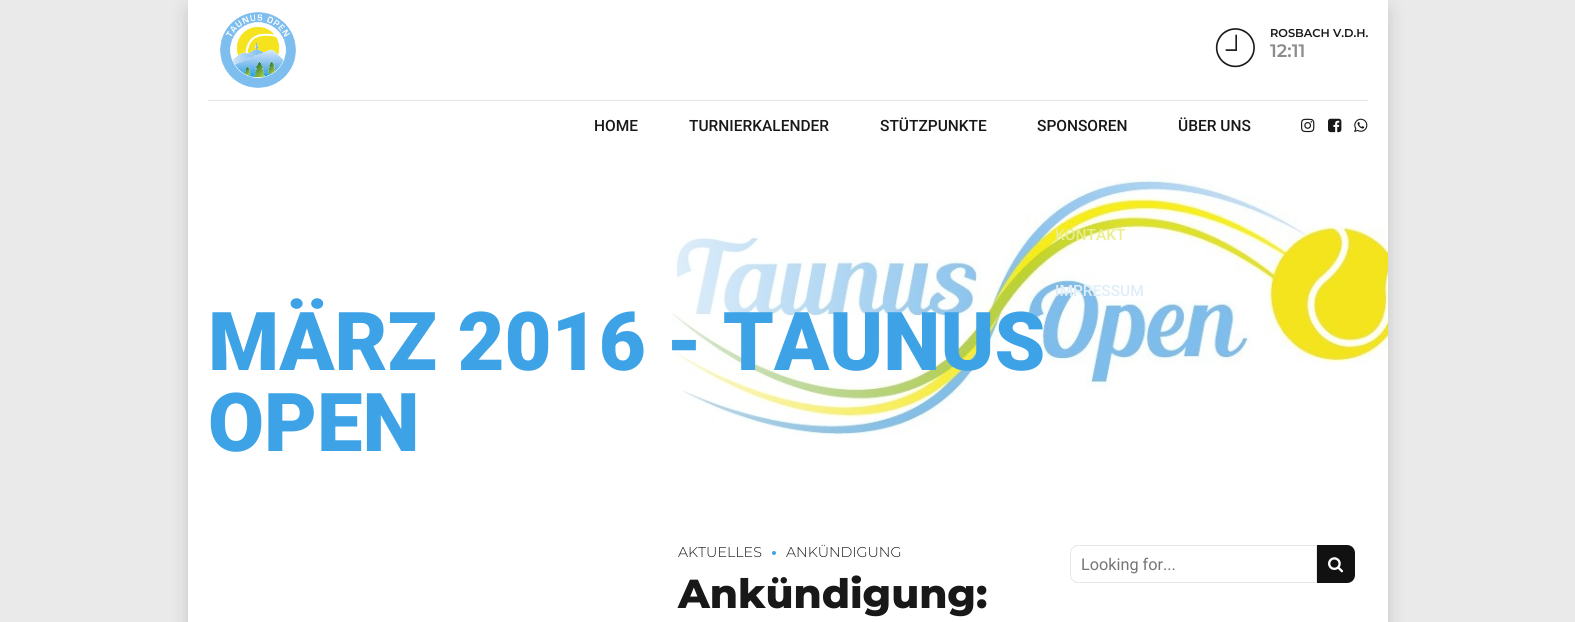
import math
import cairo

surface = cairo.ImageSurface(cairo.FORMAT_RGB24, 1575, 622)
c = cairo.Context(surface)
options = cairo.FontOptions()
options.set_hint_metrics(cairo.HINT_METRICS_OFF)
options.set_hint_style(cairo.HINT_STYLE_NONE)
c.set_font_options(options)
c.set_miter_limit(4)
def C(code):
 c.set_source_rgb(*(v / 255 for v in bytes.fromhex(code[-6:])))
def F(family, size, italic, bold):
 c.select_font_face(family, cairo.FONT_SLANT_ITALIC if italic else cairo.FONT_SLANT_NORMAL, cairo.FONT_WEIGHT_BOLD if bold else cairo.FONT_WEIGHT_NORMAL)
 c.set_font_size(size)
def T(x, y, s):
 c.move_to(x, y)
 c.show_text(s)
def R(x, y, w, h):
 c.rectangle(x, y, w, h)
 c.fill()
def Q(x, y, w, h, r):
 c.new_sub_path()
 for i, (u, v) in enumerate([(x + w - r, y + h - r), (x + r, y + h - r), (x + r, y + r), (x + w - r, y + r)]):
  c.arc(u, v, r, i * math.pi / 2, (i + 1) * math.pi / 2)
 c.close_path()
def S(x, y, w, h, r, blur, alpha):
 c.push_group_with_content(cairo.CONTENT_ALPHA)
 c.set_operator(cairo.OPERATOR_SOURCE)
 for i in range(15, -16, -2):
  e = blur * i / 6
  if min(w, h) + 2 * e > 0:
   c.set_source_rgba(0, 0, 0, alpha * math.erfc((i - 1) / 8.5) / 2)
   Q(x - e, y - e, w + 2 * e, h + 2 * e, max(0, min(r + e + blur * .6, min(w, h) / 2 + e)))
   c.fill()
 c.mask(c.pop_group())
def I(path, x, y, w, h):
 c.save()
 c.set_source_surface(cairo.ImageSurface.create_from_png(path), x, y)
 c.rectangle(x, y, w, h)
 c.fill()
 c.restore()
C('eaeaea')
c.paint()
C('000000')
S(188,0,1200,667,15,10,.15)
I('6.png',188,0,1200,562)
I('1.png',220,12,76,76)
I('2.png',1215,28,40,40)
F('Montserrat SemiBold',11.4,0,0)
C('181818')
T(1270,37,'ROSBACH V.D.H.')
F('Montserrat SemiBold',18,0,0)
C('8c8c8c')
T(1270,57,'12:11')
C('e6e6e6')
R(208,100,1160,1)
F('Roboto Medium',15.5,0,0)
C('181818')
T(594,131,'HOME')
T(689,131,'TURNIERKALENDER')
T(880,131,'STÜTZPUNKTE')
T(1178,131,'ÜBER UNS')
C('ebee8d')
T(1055,240,'KONTAKT')
C('dfeef8')
T(1055,296,'IMPRESSUM')
C('181818')
T(1037,131,'SPONSOREN')
I('3.png',1301,118,14,15)
I('4.png',1328,118,14,15)
I('5.png',1354,118,14,15)
C('ffffff')
R(188,562,1200,60)
F('Roboto Black',81.25,0,0)
C('3da3e6')
T(208,370,'MÄRZ 2016 - TAUNUS')
T(208,451,'OPEN')
F('Montserrat Light',14.25,0,0)
C('181818')
T(678,557,'AKTUELLES')
C('3da3e6')
c.new_path()
c.arc(774,553,2,0,2 * math.pi)
c.fill()
C('181818')
T(786,557,'ANKÜNDIGUNG')
F('Montserrat ExtraBold',40.5,0,0)
T(678,608,'Ankündigung:')
c.new_path()
c.move_to(1078,545.5)
c.line_to(1316.5,545.5)
c.line_to(1316.5,582.5)
c.line_to(1078,582.5)
c.curve_to(1074,582.5,1070.5,579,1070.5,575)
c.line_to(1070.5,553)
c.curve_to(1070.5,549,1074,545.5,1078,545.5)
c.close_path()
C('e6e6e6')
c.set_line_width(1)
c.stroke()
F('Roboto',16.25,0,0)
C('757575')
T(1081,570,'Looking for...')
C('111111')
c.new_path()
c.move_to(1317,545)
c.line_to(1347,545)
c.curve_to(1351.5,545,1355,548.5,1355,553)
c.line_to(1355,575)
c.curve_to(1355,579.5,1351.5,583,1347,583)
c.line_to(1317,583)
c.close_path()
c.fill()
I('7.png',1328,557,16,16)
surface.write_to_png('o.png')
